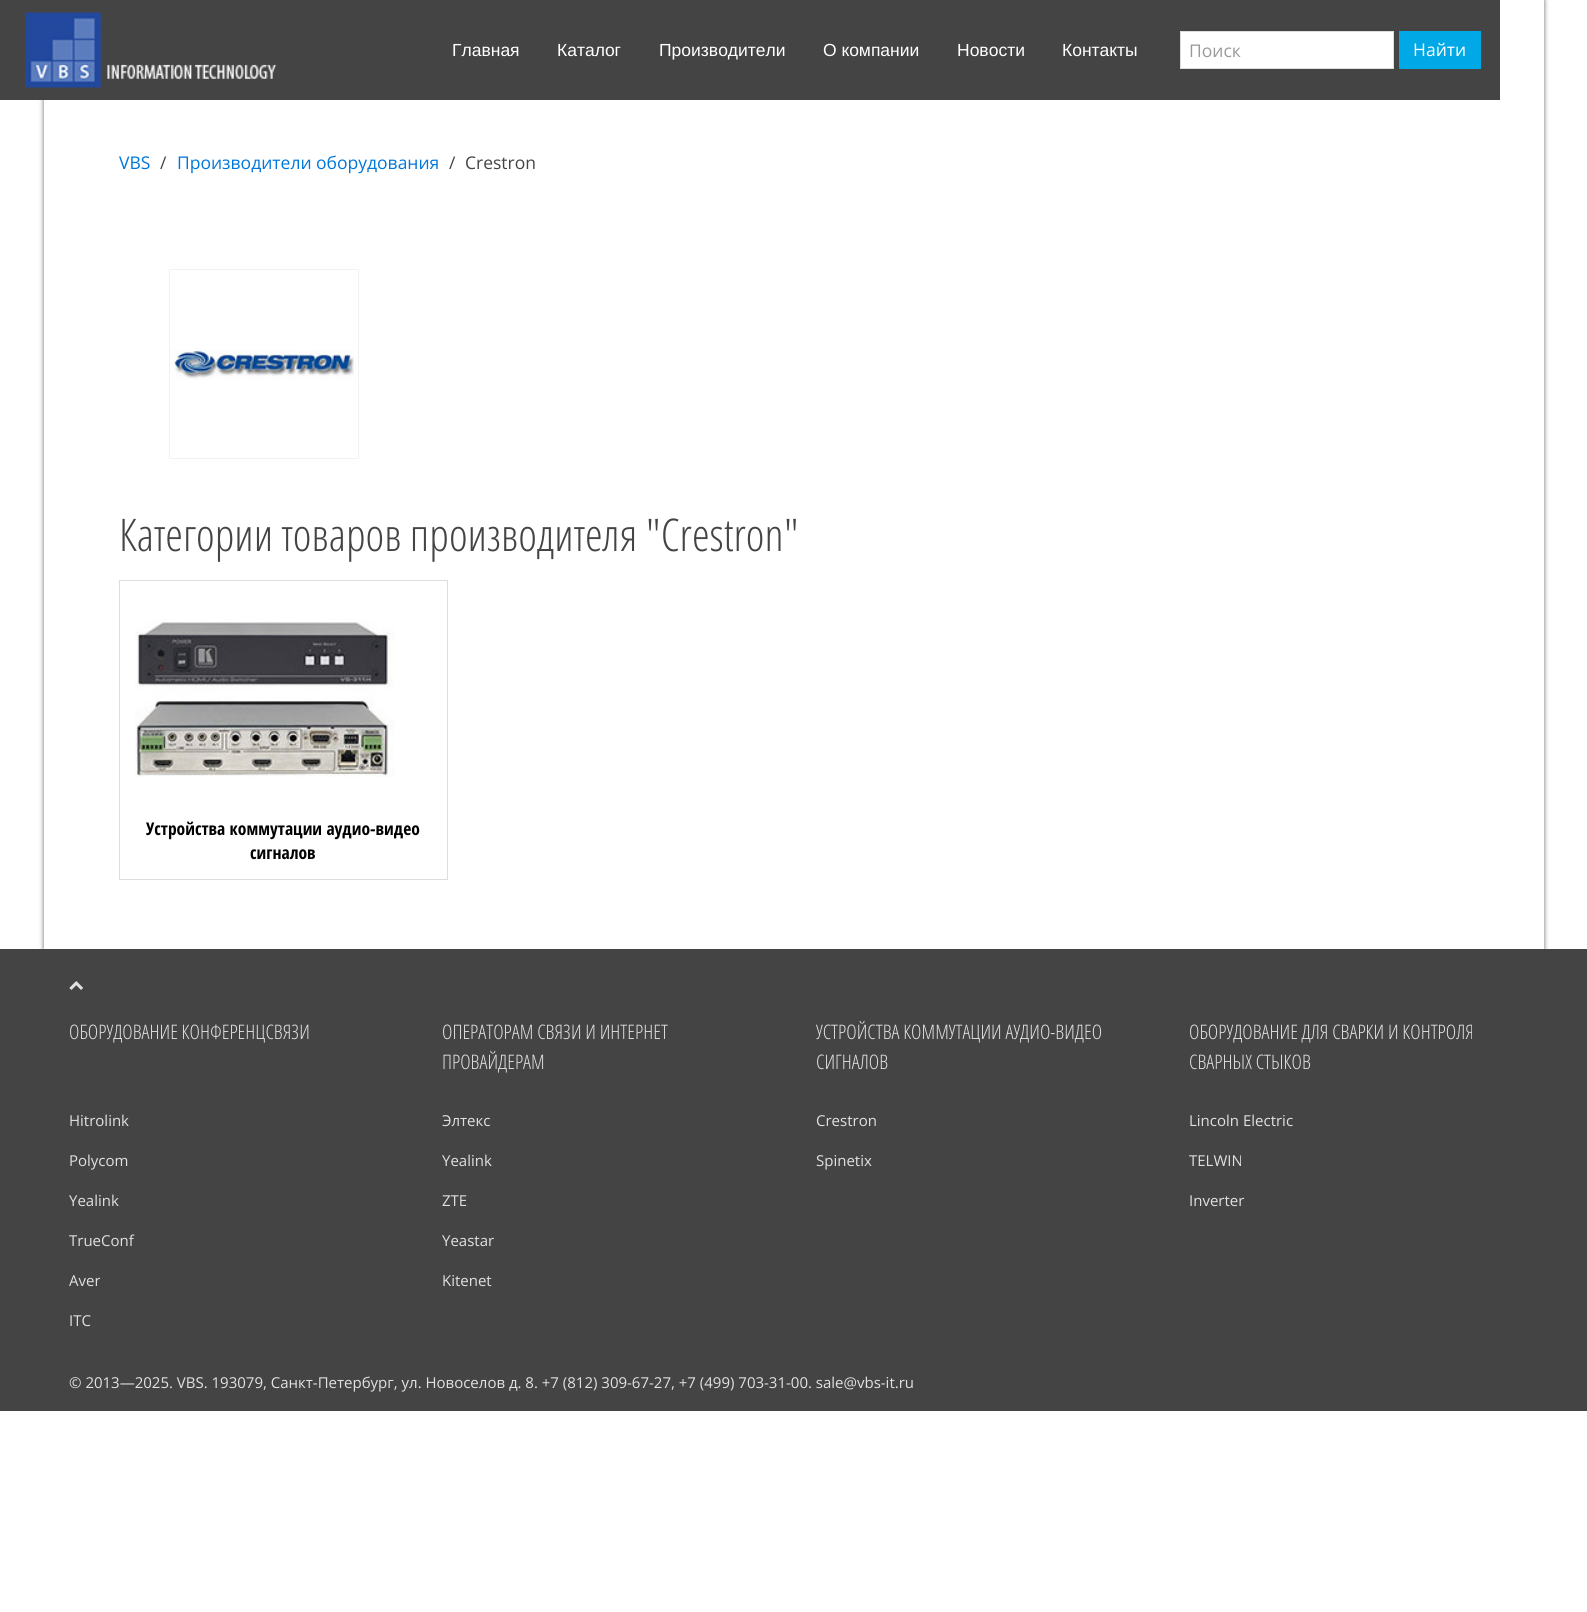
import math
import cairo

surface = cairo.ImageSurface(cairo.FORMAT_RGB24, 1587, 1612)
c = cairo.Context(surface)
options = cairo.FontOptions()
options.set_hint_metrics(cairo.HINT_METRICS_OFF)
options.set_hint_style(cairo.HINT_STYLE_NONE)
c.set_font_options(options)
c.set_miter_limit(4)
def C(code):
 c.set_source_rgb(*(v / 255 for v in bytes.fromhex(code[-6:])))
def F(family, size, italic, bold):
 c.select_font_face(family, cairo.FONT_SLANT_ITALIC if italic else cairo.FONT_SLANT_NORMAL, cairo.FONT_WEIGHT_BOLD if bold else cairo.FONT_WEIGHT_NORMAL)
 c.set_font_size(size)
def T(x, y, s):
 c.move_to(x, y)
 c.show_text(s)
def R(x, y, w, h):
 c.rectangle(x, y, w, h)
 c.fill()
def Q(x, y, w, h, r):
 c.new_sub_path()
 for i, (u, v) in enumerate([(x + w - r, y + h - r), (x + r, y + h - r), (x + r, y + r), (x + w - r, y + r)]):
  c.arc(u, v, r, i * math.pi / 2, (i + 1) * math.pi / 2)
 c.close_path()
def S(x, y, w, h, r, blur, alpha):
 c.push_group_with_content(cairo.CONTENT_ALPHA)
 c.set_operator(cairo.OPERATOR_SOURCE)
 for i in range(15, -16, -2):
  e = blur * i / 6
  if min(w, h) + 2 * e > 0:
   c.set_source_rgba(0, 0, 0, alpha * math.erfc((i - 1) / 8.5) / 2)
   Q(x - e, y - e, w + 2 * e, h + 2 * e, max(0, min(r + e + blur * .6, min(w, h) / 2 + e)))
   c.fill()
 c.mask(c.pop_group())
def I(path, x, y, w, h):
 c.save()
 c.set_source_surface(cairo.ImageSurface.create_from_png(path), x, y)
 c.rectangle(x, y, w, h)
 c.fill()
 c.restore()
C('ffffff')
c.paint()
C('666666')
S(44,0,1500,949,0,2.5,1)
C('ffffff')
R(44,0,1500,949)
C('444444')
R(0,0,1500,100)
I('1.png',25,12,252,76)
F('Liberation Sans',17.5,0,0)
C('ffffff')
T(452,56,'Главная')
T(557,56,'Каталог')
T(659,56,'Производители')
T(823,56,'О компании')
T(957,56,'Новости')
T(1062,56,'Контакты')
c.rectangle(1180.5,31.5,213,37)
c.fill_preserve()
C('dddddd')
c.set_line_width(1)
c.stroke()
F('Open Sans',17.5,0,0)
C('999999')
T(1189,57,'Поиск')
C('00a8e6')
R(1399,31,82,38)
C('ffffff')
T(1413,56,'Найти')
C('0077dd')
T(119,169,'VBS')
C('444444')
T(160,169,'/')
C('0077dd')
T(177,169,'Производители оборудования')
C('444444')
T(449,169,'/')
T(465,169,'Crestron')
c.rectangle(169.5,269.5,189,189)
C('f1f1f1')
c.stroke()
I('2.png',170,350,187,30)
F('Open Sans Condensed Light',45,0,0)
C('444444')
T(119,551,'Категории товаров производителя "Crestron"')
c.rectangle(119.5,580.5,328,299)
C('dddddd')
c.stroke()
I('3.png',135,619,260,158)
F('Open Sans Condensed',17.5,0,1)
C('000000')
T(146,835,'Устройства коммутации аудио-видео')
T(250,859,'сигналов')
C('444444')
R(0,949,1587,462)
I('4.png',69,981,14,9)
F('Open Sans Condensed Light',20,0,0)
C('e1e1e1')
T(69,1039,'ОБОРУДОВАНИЕ КОНФЕРЕНЦСВЯЗИ')
F('Open Sans',15,0,0)
T(69,1126,'Hitrolink')
T(69,1166,'Polycom')
T(69,1206,'Yealink')
T(69,1246,'TrueConf')
T(69,1286,'Aver')
T(69,1326,'ITC')
F('Open Sans Condensed Light',20,0,0)
T(442,1039,'ОПЕРАТОРАМ СВЯЗИ И ИНТЕРНЕТ')
T(442,1069,'ПРОВАЙДЕРАМ')
F('Open Sans',15,0,0)
T(442,1126,'Элтекс')
T(442,1166,'Yealink')
T(442,1206,'ZTE')
T(442,1246,'Yeastar')
T(442,1286,'Kitenet')
F('Open Sans Condensed Light',20,0,0)
T(816,1039,'УСТРОЙСТВА КОММУТАЦИИ АУДИО-ВИДЕО')
T(816,1069,'СИГНАЛОВ')
F('Open Sans',15,0,0)
T(816,1126,'Crestron')
T(816,1166,'Spinetix')
F('Open Sans Condensed Light',20,0,0)
T(1189,1039,'ОБОРУДОВАНИЕ ДЛЯ СВАРКИ И КОНТРОЛЯ')
T(1189,1069,'СВАРНЫХ СТЫКОВ')
F('Open Sans',15,0,0)
T(1189,1126,'Lincoln Electric')
T(1189,1166,'TELWIN')
T(1189,1206,'Inverter')
T(69,1388,'© 2013—2025. VBS. 193079, Санкт-Петербург, ул. Новоселов д. 8. +7 (812) 309-67-27, +7 (499) 703-31-00. sale@vbs-it.ru')
surface.write_to_png('o.png')
